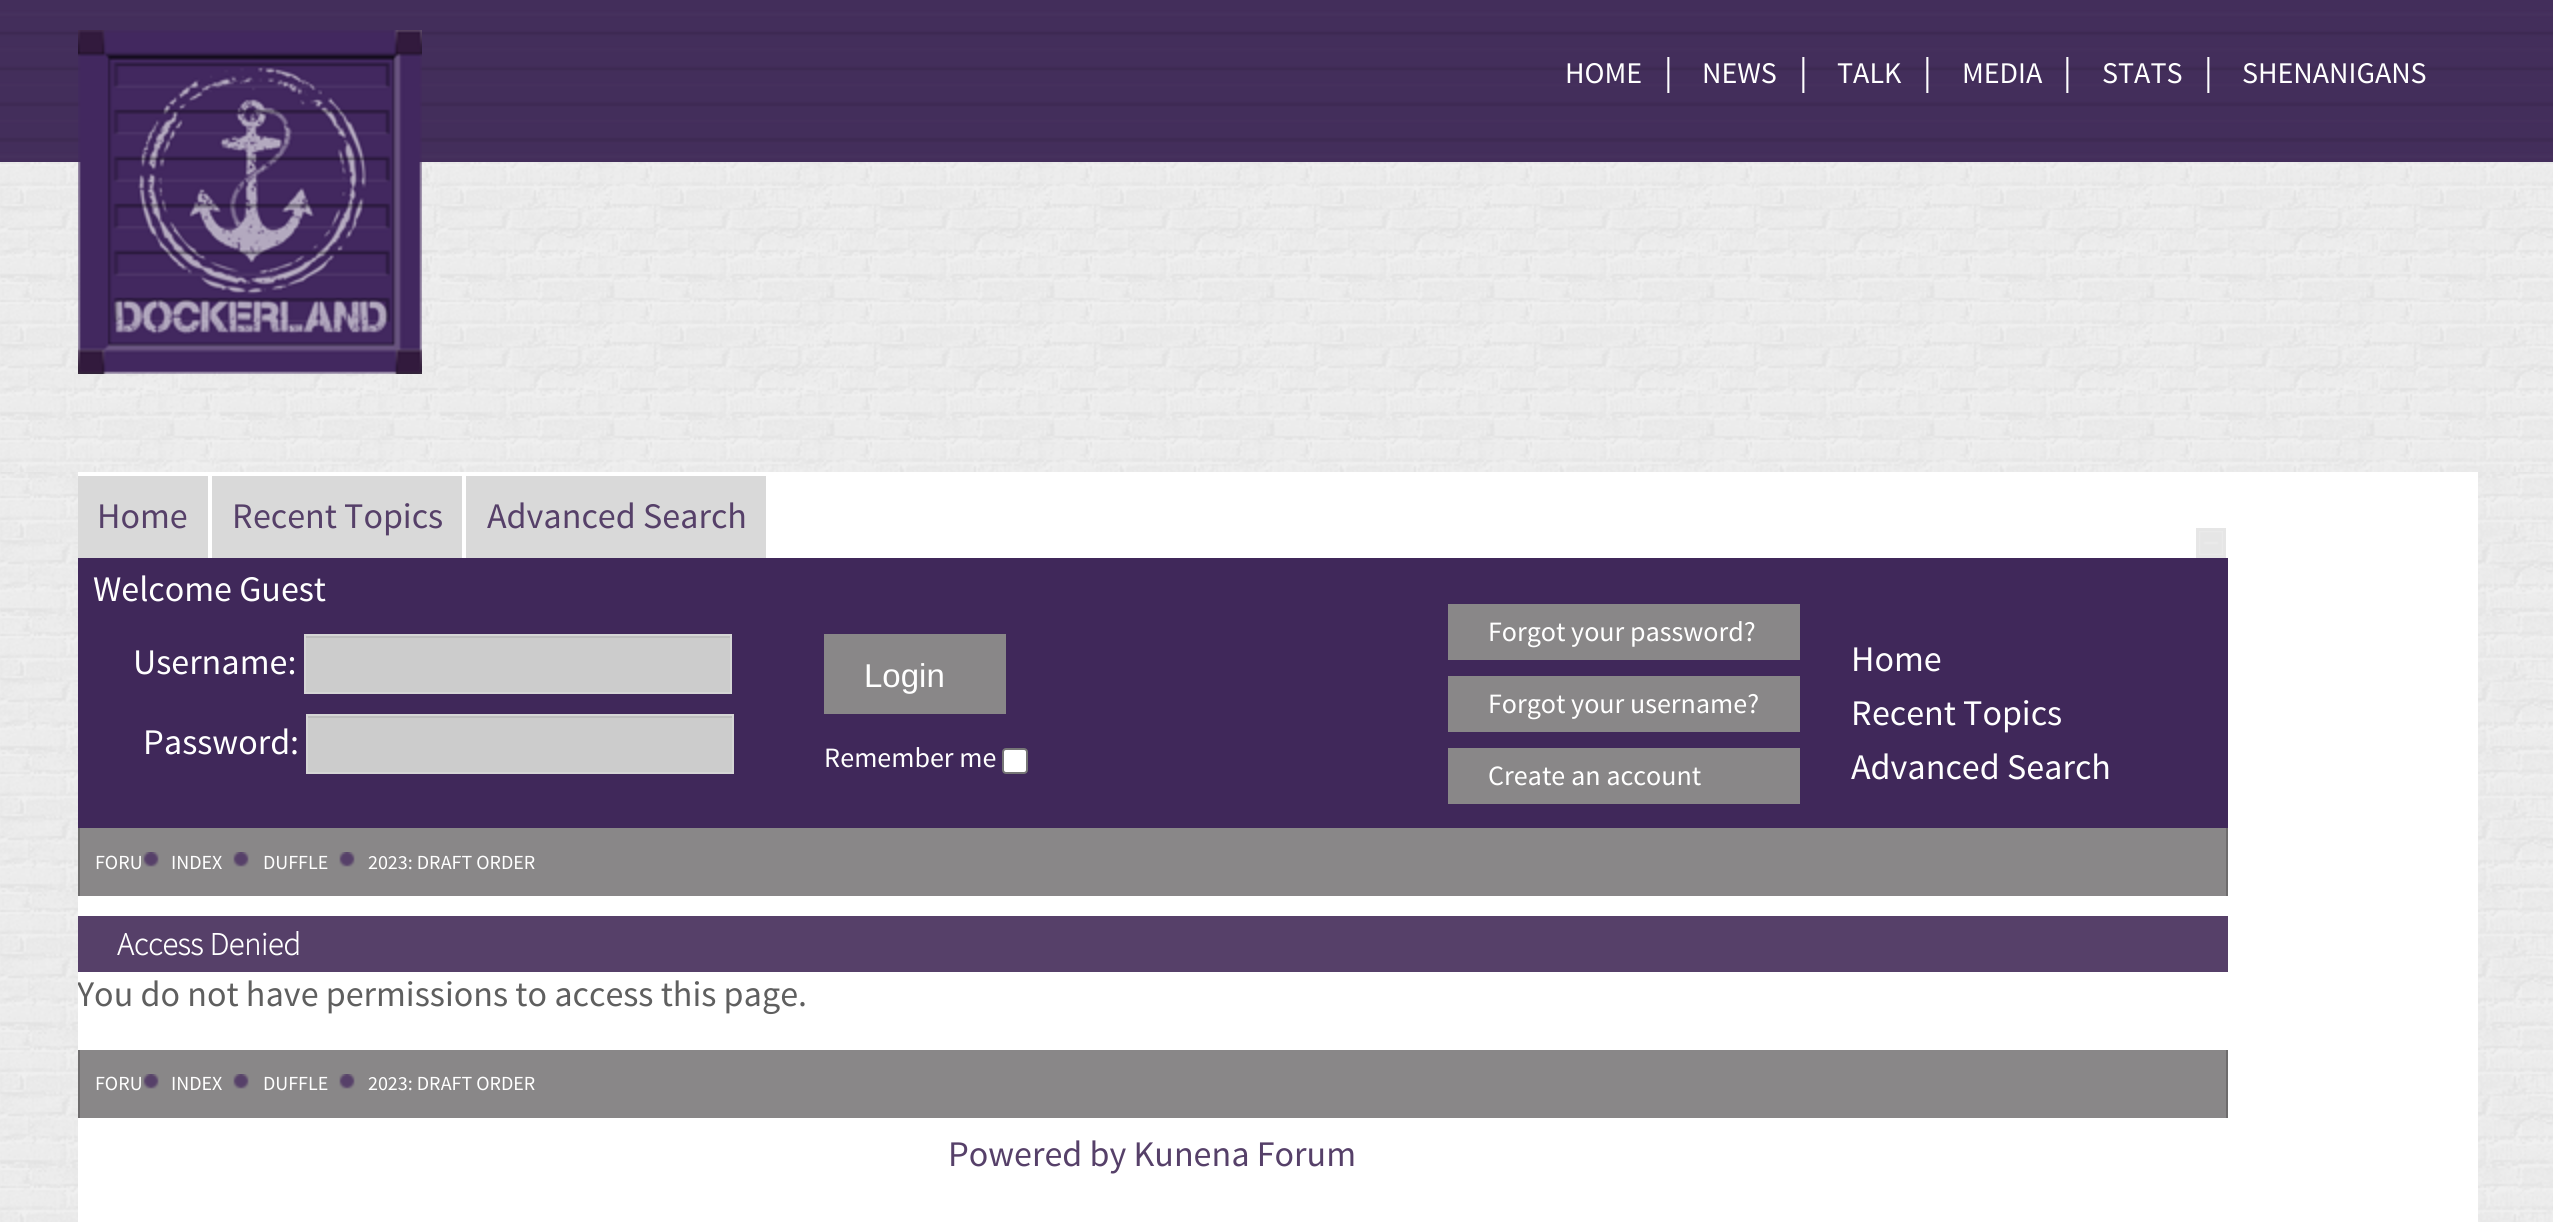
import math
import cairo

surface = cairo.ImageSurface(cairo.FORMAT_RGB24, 2553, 1222)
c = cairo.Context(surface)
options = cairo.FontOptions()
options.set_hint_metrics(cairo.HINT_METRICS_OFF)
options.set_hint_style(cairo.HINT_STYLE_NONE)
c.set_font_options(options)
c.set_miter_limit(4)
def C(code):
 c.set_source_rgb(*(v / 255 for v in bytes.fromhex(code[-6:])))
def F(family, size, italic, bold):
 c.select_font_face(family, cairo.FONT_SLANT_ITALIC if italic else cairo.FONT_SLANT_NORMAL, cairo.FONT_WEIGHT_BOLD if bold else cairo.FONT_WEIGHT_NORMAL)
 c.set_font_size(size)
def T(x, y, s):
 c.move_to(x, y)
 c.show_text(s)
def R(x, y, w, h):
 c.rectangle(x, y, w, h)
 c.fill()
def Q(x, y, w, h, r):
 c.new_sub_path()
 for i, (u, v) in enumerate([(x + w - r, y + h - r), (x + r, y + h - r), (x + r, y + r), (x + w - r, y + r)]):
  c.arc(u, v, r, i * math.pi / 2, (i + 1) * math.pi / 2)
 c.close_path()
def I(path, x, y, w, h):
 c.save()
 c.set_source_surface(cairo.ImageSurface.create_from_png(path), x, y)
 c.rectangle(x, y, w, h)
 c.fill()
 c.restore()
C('ffffff')
c.paint()
I('1.png',0,162,2553,310)
I('2.png',0,0,2553,162)
I('3.png',78,30,344,344)
F('Source Sans Pro',30,0,0)
C('ffffff')
T(1565,83,'HOME')
F('Source Sans Pro',36,0,0)
T(1664,84,'|')
F('Source Sans Pro',30,0,0)
T(1702,83,'NEWS')
F('Source Sans Pro',36,0,0)
T(1799,84,'|')
F('Source Sans Pro',30,0,0)
T(1837,83,'TALK')
F('Source Sans Pro',36,0,0)
T(1923,84,'|')
F('Source Sans Pro',30,0,0)
T(1962,83,'MEDIA')
F('Source Sans Pro',36,0,0)
T(2063,84,'|')
F('Source Sans Pro',30,0,0)
T(2102,83,'STATS')
F('Source Sans Pro',36,0,0)
T(2204,84,'|')
F('Source Sans Pro',30,0,0)
T(2242,83,'SHENANIGANS')
I('4.png',0,472,2553,750)
R(78,472,2400,750)
C('d9d9d9')
R(78,476,130,82)
F('Source Sans Pro',36,0,0)
C('564069')
T(97,528,'Home')
C('d9d9d9')
R(212,476,250,82)
C('564069')
T(232,528,'Recent Topics')
C('d9d9d9')
R(466,476,300,82)
C('564069')
T(487,528,'Advanced Search')
C('e6e6e6')
R(2196,528,30,30)
I('5.png',2199,531,24,24)
C('40285a')
R(78,558,2150,270)
C('ffffff')
T(93,601,'Welcome Guest')
T(133,674,'Username:')
C('cccccc')
R(306,638,424,54)
C('bdbdbd')
R(306,636,424,2)
c.rectangle(305,635,426,58)
C('d5d5d5')
c.stroke()
C('ffffff')
T(143,754,'Password:')
C('cccccc')
R(308,718,424,54)
C('bdbdbd')
R(308,716,424,2)
c.rectangle(307,715,426,58)
C('d5d5d5')
c.stroke()
C('898788')
R(824,634,182,80)
F('Liberation Sans',33,0,0)
C('ffffff')
T(864,687,'Login')
F('Source Sans Pro',28,0,0)
T(824,767,'Remember me')
Q(1003,749,24,24,3)
c.fill_preserve()
C('767676')
c.stroke()
C('898788')
R(1448,604,352,56)
C('ffffff')
T(1488,641,'Forgot your password?')
C('898788')
R(1448,676,352,56)
C('ffffff')
T(1488,713,'Forgot your username?')
C('898788')
R(1448,748,352,56)
C('ffffff')
T(1488,785,'Create an account')
F('Source Sans Pro',36,0,0)
T(1851,671,'Home')
T(1851,725,'Recent Topics')
T(1851,779,'Advanced Search')
C('898788')
R(80,828,2146,68)
C('6e6c6d')
R(2226,828,2,68)
R(78,828,2,68)
F('Source Sans Pro',20,0,0)
C('ffffff')
T(95,869,'FORU')
I('6.png',143,852,16,15)
T(171,869,'INDEX')
I('7.png',233,852,16,15)
T(263,869,'DUFFLE')
I('7.png',339,852,16,15)
T(368,869,'2023: DRAFT ORDER')
C('564069')
R(78,916,2150,56)
F('Source Sans Pro',32,0,1)
C('ffffff')
T(117,955,'Access Denied')
c.save()
c.rectangle(78,972,2150,78)
c.clip()
F('Source Sans Pro',36,0,0)
C('5f5f5f')
T(77,1006,'You do not have permissions to access this page.')
c.restore()
C('898788')
R(80,1050,2146,68)
C('6e6c6d')
R(2226,1050,2,68)
R(78,1050,2,68)
F('Source Sans Pro',20,0,0)
C('ffffff')
T(95,1090,'FORU')
I('8.png',143,1074,16,15)
T(171,1090,'INDEX')
I('7.png',233,1074,16,15)
T(263,1090,'DUFFLE')
I('7.png',339,1074,16,15)
T(368,1090,'2023: DRAFT ORDER')
F('Source Sans Pro',36,0,0)
C('564069')
T(948,1166,'Powered by Kunena Forum')
surface.write_to_png('o.png')
